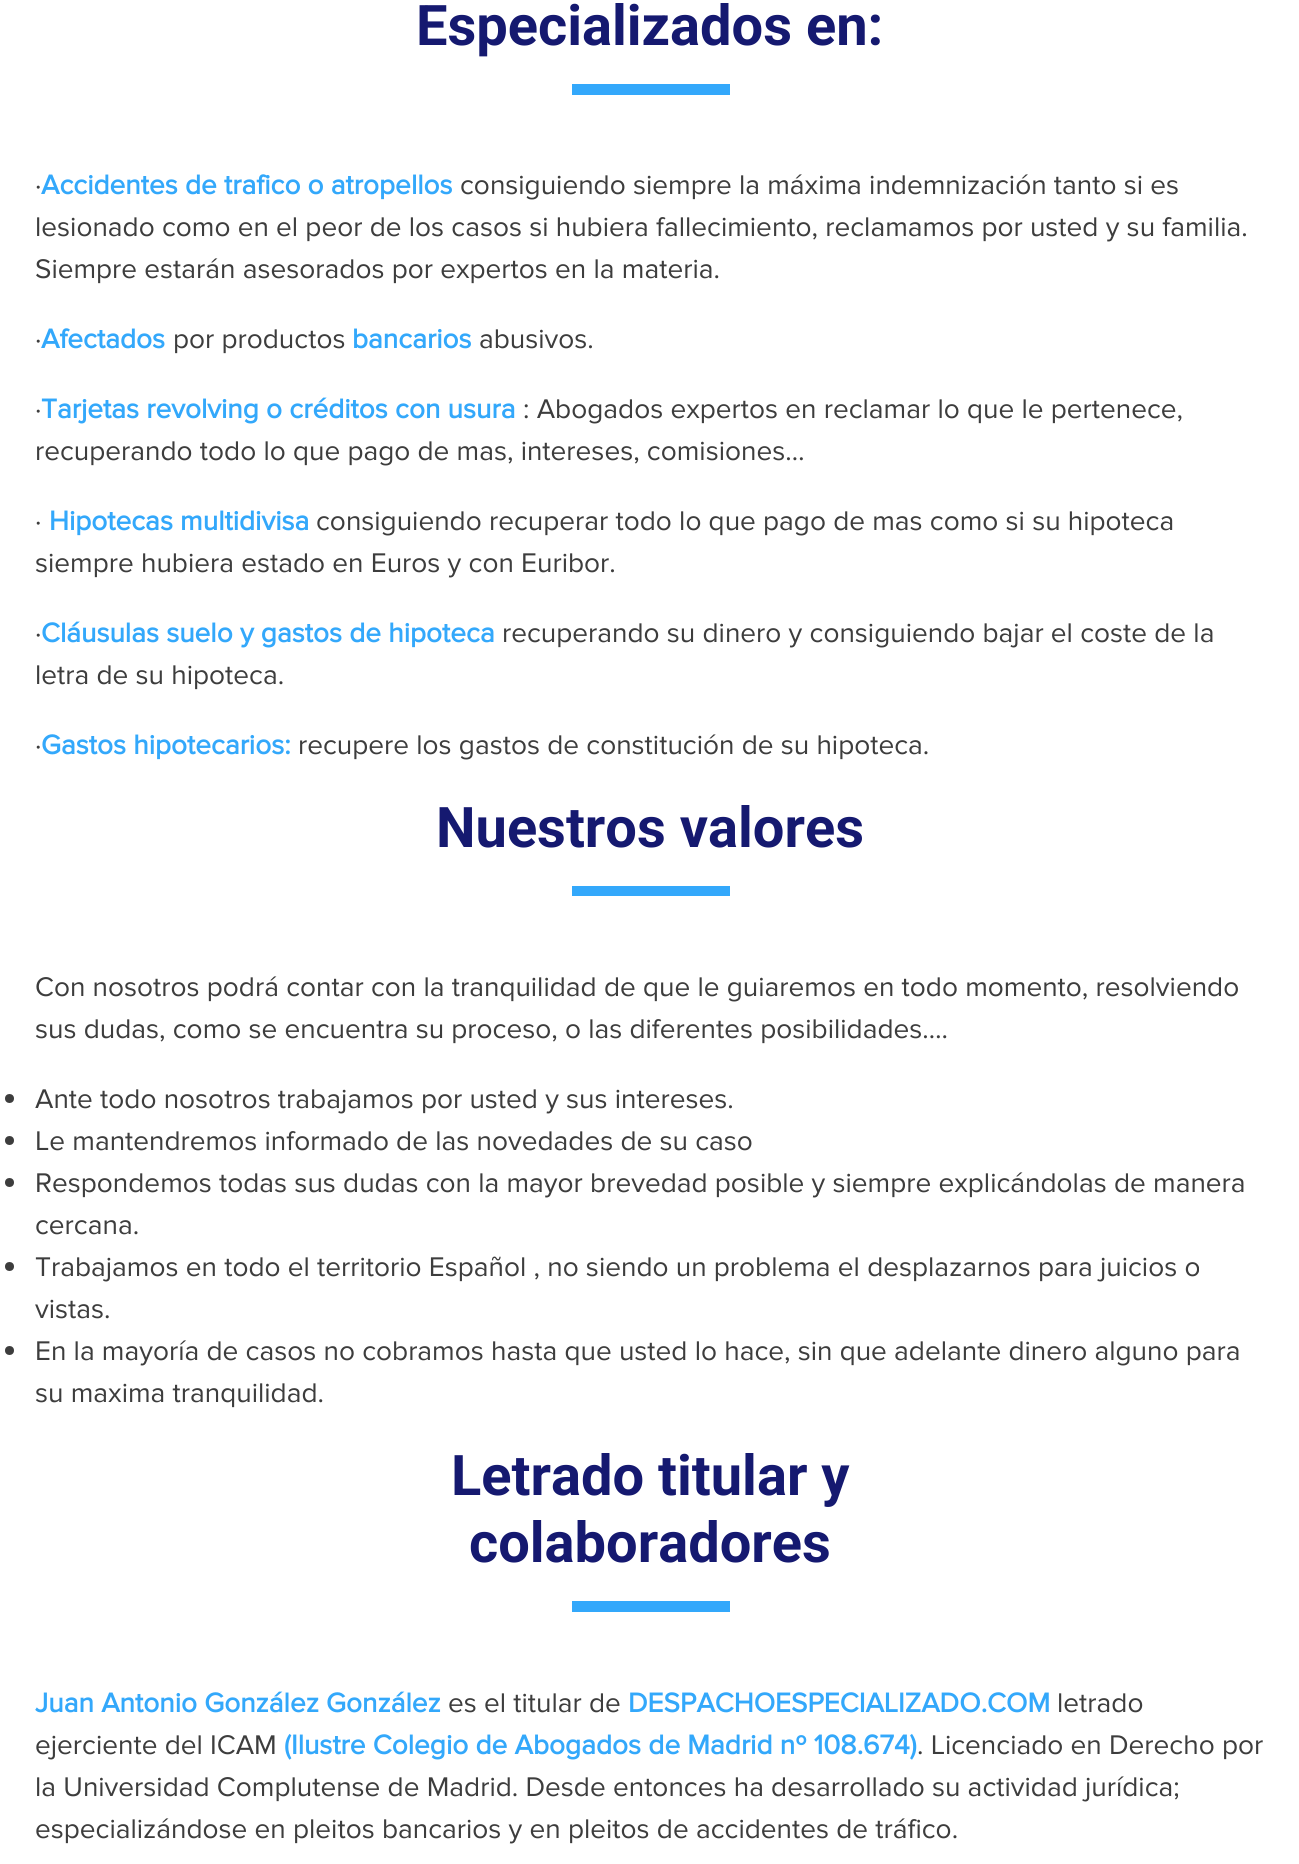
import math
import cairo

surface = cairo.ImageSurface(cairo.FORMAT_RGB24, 1299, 1864)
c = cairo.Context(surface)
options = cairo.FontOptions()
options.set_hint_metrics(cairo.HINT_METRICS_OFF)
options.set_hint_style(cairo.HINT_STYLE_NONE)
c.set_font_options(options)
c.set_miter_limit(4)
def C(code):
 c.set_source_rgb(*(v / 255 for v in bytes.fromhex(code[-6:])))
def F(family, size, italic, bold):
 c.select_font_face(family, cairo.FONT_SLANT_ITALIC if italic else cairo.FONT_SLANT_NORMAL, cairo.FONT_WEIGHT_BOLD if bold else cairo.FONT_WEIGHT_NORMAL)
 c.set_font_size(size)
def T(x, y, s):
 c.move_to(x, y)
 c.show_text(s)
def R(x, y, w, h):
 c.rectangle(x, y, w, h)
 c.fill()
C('ffffff')
c.paint()
F('Roboto',56,0,1)
C('151970')
T(416,45,'Especializados en:')
C('33a8fb')
R(572,84,158,11)
F('Proxima Nova',28,0,0)
C('3d3d3d')
T(35,194,'·')
F('Proxima Nova',28,0,1)
C('33a8fb')
T(41,194,'Accidentes de trafico o atropellos')
F('Proxima Nova',28,0,0)
C('3d3d3d')
T(460,194,'consiguiendo siempre la máxima indemnización tanto si es')
T(35,236,'lesionado como en el peor de los casos si hubiera fallecimiento, reclamamos por usted y su familia.')
T(35,278,'Siempre estarán asesorados por expertos en la materia.')
T(35,348,'·')
F('Proxima Nova',28,0,1)
C('33a8fb')
T(41,348,'Afectados')
F('Proxima Nova',28,0,0)
C('3d3d3d')
T(173,348,'por productos')
F('Proxima Nova',28,0,1)
C('33a8fb')
T(352,348,'bancarios')
F('Proxima Nova',28,0,0)
C('3d3d3d')
T(479,348,'abusivos.')
T(35,418,'·')
F('Proxima Nova',28,0,1)
C('33a8fb')
T(41,418,'Tarjetas revolving o créditos con usura')
F('Proxima Nova',28,0,0)
C('3d3d3d')
T(523,418,': Abogados expertos en reclamar lo que le pertenece,')
T(35,460,'recuperando todo lo que pago de mas, intereses, comisiones…')
T(35,530,'·')
F('Proxima Nova',28,0,1)
C('33a8fb')
T(49,530,'Hipotecas multidivisa')
F('Proxima Nova',28,0,0)
C('3d3d3d')
T(316,530,'consiguiendo recuperar todo lo que pago de mas como si su hipoteca')
T(35,572,'siempre hubiera estado en Euros y con Euribor.')
T(35,642,'·')
F('Proxima Nova',28,0,1)
C('33a8fb')
T(41,642,'Cláusulas suelo y gastos de hipoteca')
F('Proxima Nova',28,0,0)
C('3d3d3d')
T(502,642,'recuperando su dinero y consiguiendo bajar el coste de la')
T(35,684,'letra de su hipoteca.')
T(35,754,'·')
F('Proxima Nova',28,0,1)
C('33a8fb')
T(41,754,'Gastos hipotecarios:')
F('Proxima Nova',28,0,0)
C('3d3d3d')
T(298,754,'recupere los gastos de constitución de su hipoteca.')
F('Roboto',56,0,1)
C('151970')
T(436,847,'Nuestros valores')
C('33a8fb')
R(572,886,158,10)
F('Proxima Nova',28,0,0)
C('3d3d3d')
T(35,996,'Con nosotros podrá contar con la tranquilidad de que le guiaremos en todo momento, resolviendo')
T(35,1038,'sus dudas, como se encuentra su proceso, o las diferentes posibilidades….')
c.new_path()
c.arc(9.5,1098.5,4.5,0,2 * math.pi)
c.fill()
T(35,1108,'Ante todo nosotros trabajamos por usted y sus intereses.')
c.new_path()
c.arc(9.5,1140.5,4.5,0,2 * math.pi)
c.fill()
T(35,1150,'Le mantendremos informado de las novedades de su caso')
c.new_path()
c.arc(9.5,1182.5,4.5,0,2 * math.pi)
c.fill()
T(35,1192,'Respondemos todas sus dudas con la mayor brevedad posible y siempre explicándolas de manera')
T(35,1234,'cercana.')
c.new_path()
c.arc(9.5,1266.5,4.5,0,2 * math.pi)
c.fill()
T(35,1276,'Trabajamos en todo el territorio Español , no siendo un problema el desplazarnos para juicios o')
T(35,1318,'vistas.')
c.new_path()
c.arc(9.5,1350.5,4.5,0,2 * math.pi)
c.fill()
T(35,1360,'En la mayoría de casos no cobramos hasta que usted lo hace, sin que adelante dinero alguno para')
T(35,1402,'su maxima tranquilidad.')
F('Roboto',56,0,1)
C('151970')
T(451,1495,'Letrado titular y')
T(469,1562,'colaboradores')
C('33a8fb')
R(572,1601,158,11)
F('Proxima Nova',28,0,1)
T(35,1712,'Juan Antonio González González')
F('Proxima Nova',28,0,0)
C('3d3d3d')
T(448,1712,'es el titular de')
F('Proxima Nova',28,0,1)
C('33a8fb')
T(628,1712,'DESPACHOESPECIALIZADO.COM')
F('Proxima Nova',28,0,0)
C('3d3d3d')
T(1057,1712,'letrado')
T(35,1754,'ejerciente del ICAM')
F('Proxima Nova',28,0,1)
C('33a8fb')
T(284,1754,'(Ilustre Colegio de Abogados de Madrid nº 108.674)')
F('Proxima Nova',28,0,0)
C('3d3d3d')
T(917,1754,'. Licenciado en Derecho por')
T(35,1796,'la Universidad Complutense de Madrid. Desde entonces ha desarrollado su actividad jurídica;')
T(35,1838,'especializándose en pleitos bancarios y en pleitos de accidentes de tráfico.')
surface.write_to_png('o.png')
